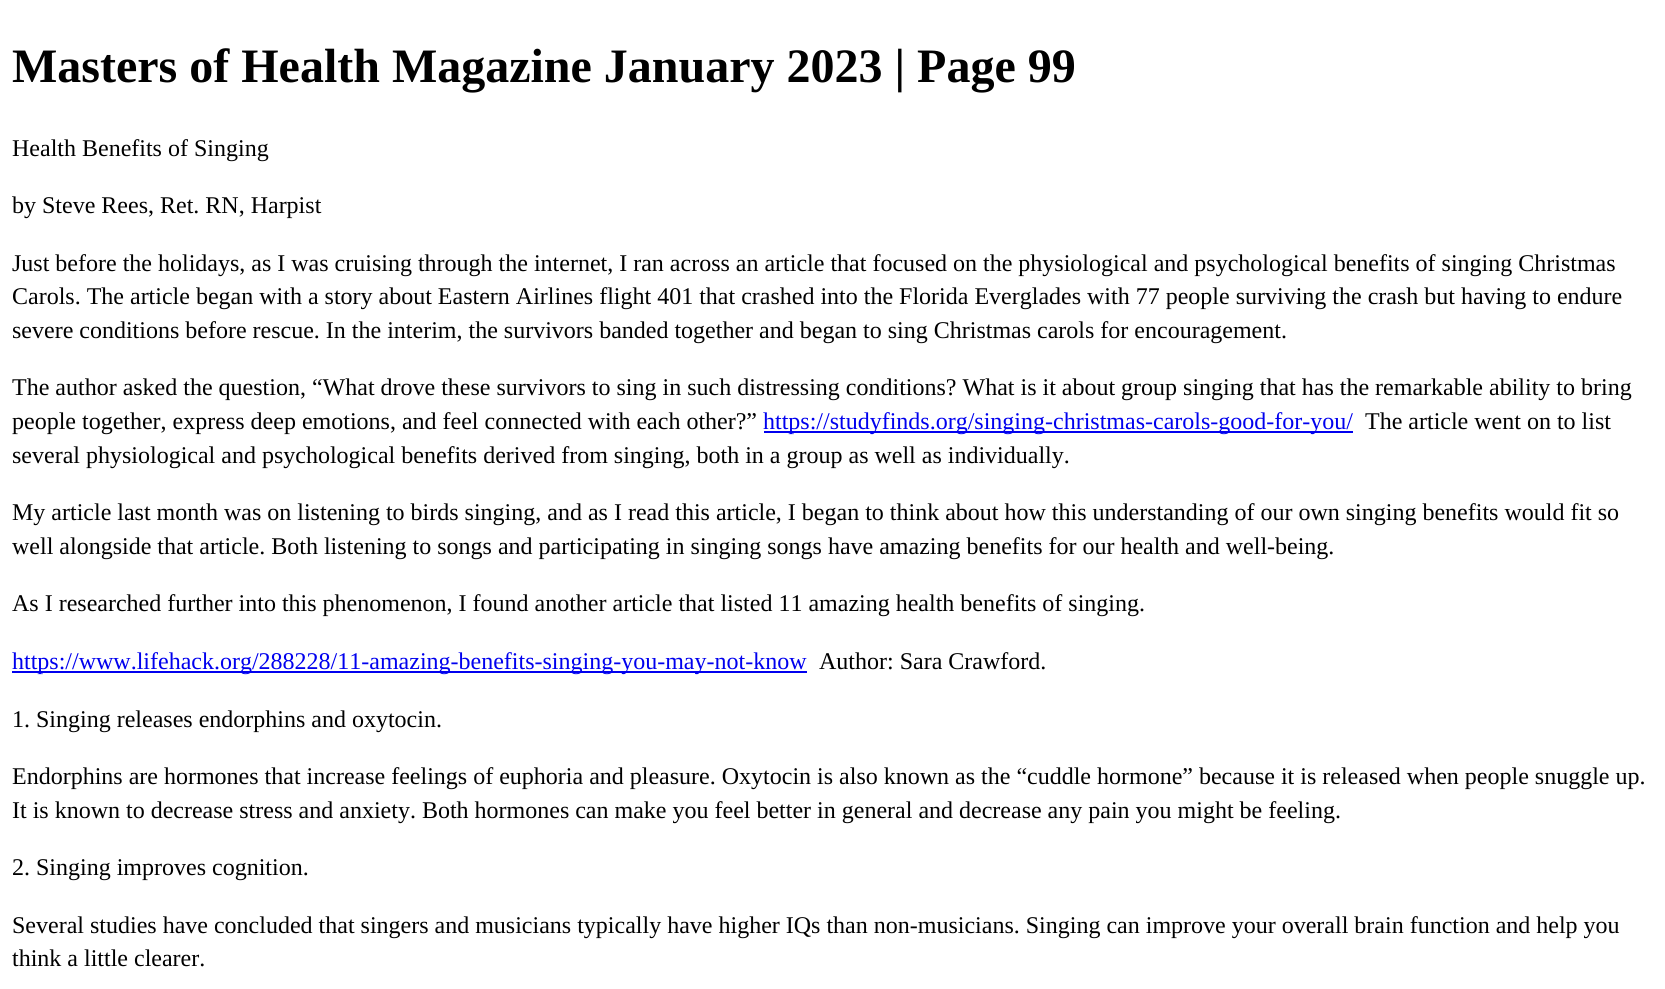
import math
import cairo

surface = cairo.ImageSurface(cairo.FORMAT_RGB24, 1665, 989)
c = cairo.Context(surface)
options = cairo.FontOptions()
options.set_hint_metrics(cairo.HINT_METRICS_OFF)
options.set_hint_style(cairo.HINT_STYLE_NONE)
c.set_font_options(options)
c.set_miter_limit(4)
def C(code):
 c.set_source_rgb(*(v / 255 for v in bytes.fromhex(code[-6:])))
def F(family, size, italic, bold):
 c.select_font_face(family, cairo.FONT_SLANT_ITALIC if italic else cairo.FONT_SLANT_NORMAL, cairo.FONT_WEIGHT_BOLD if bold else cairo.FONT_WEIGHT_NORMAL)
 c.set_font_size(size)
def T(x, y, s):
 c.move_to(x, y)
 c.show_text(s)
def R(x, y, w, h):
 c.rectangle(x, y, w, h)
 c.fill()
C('ffffff')
c.paint()
F('Liberation Serif',48,0,1)
C('000000')
T(12,82,'Masters of Health Magazine January 2023 | Page 99')
F('Liberation Serif',24,0,0)
T(12,156,'Health Benefits of Singing')
T(12,213,'by Steve Rees, Ret. RN, Harpist')
T(12,271,'Just before the holidays, as I was cruising through the internet, I ran across an article that focused on the physiological and psychological benefits of singing Christmas')
T(12,304,'Carols. The article began with a story about Eastern Airlines flight 401 that crashed into the Florida Everglades with 77 people surviving the crash but having to endure')
T(12,338,'severe conditions before rescue. In the interim, the survivors banded together and began to sing Christmas carols for encouragement.')
T(12,395,'The author asked the question, “What drove these survivors to sing in such distressing conditions? What is it about group singing that has the remarkable ability to bring')
T(12,429,'people together, express deep emotions, and feel connected with each other?”')
C('0000ee')
R(764,431,589,2)
T(763,429,'https://studyfinds.org/singing-christmas-carols-good-for-you/')
C('000000')
T(1365,429,'The article went on to list')
T(12,463,'several physiological and psychological benefits derived from singing, both in a group as well as individually.')
T(12,520,'My article last month was on listening to birds singing, and as I read this article, I began to think about how this understanding of our own singing benefits would fit so')
T(12,554,'well alongside that article. Both listening to songs and participating in singing songs have amazing benefits for our health and well-being.')
T(12,611,'As I researched further into this phenomenon, I found another article that listed 11 amazing health benefits of singing.')
C('0000ee')
R(12,671,795,2)
T(12,669,'https://www.lifehack.org/288228/11-amazing-benefits-singing-you-may-not-know')
C('000000')
T(819,669,'Author: Sara Crawford.')
T(12,727,'1. Singing releases endorphins and oxytocin.')
T(12,784,'Endorphins are hormones that increase feelings of euphoria and pleasure. Oxytocin is also known as the “cuddle hormone” because it is released when people snuggle up.')
T(12,818,'It is known to decrease stress and anxiety. Both hormones can make you feel better in general and decrease any pain you might be feeling.')
T(12,875,'2. Singing improves cognition.')
T(12,933,'Several studies have concluded that singers and musicians typically have higher IQs than non-musicians. Singing can improve your overall brain function and help you')
T(12,966,'think a little clearer.')
surface.write_to_png('o.png')
